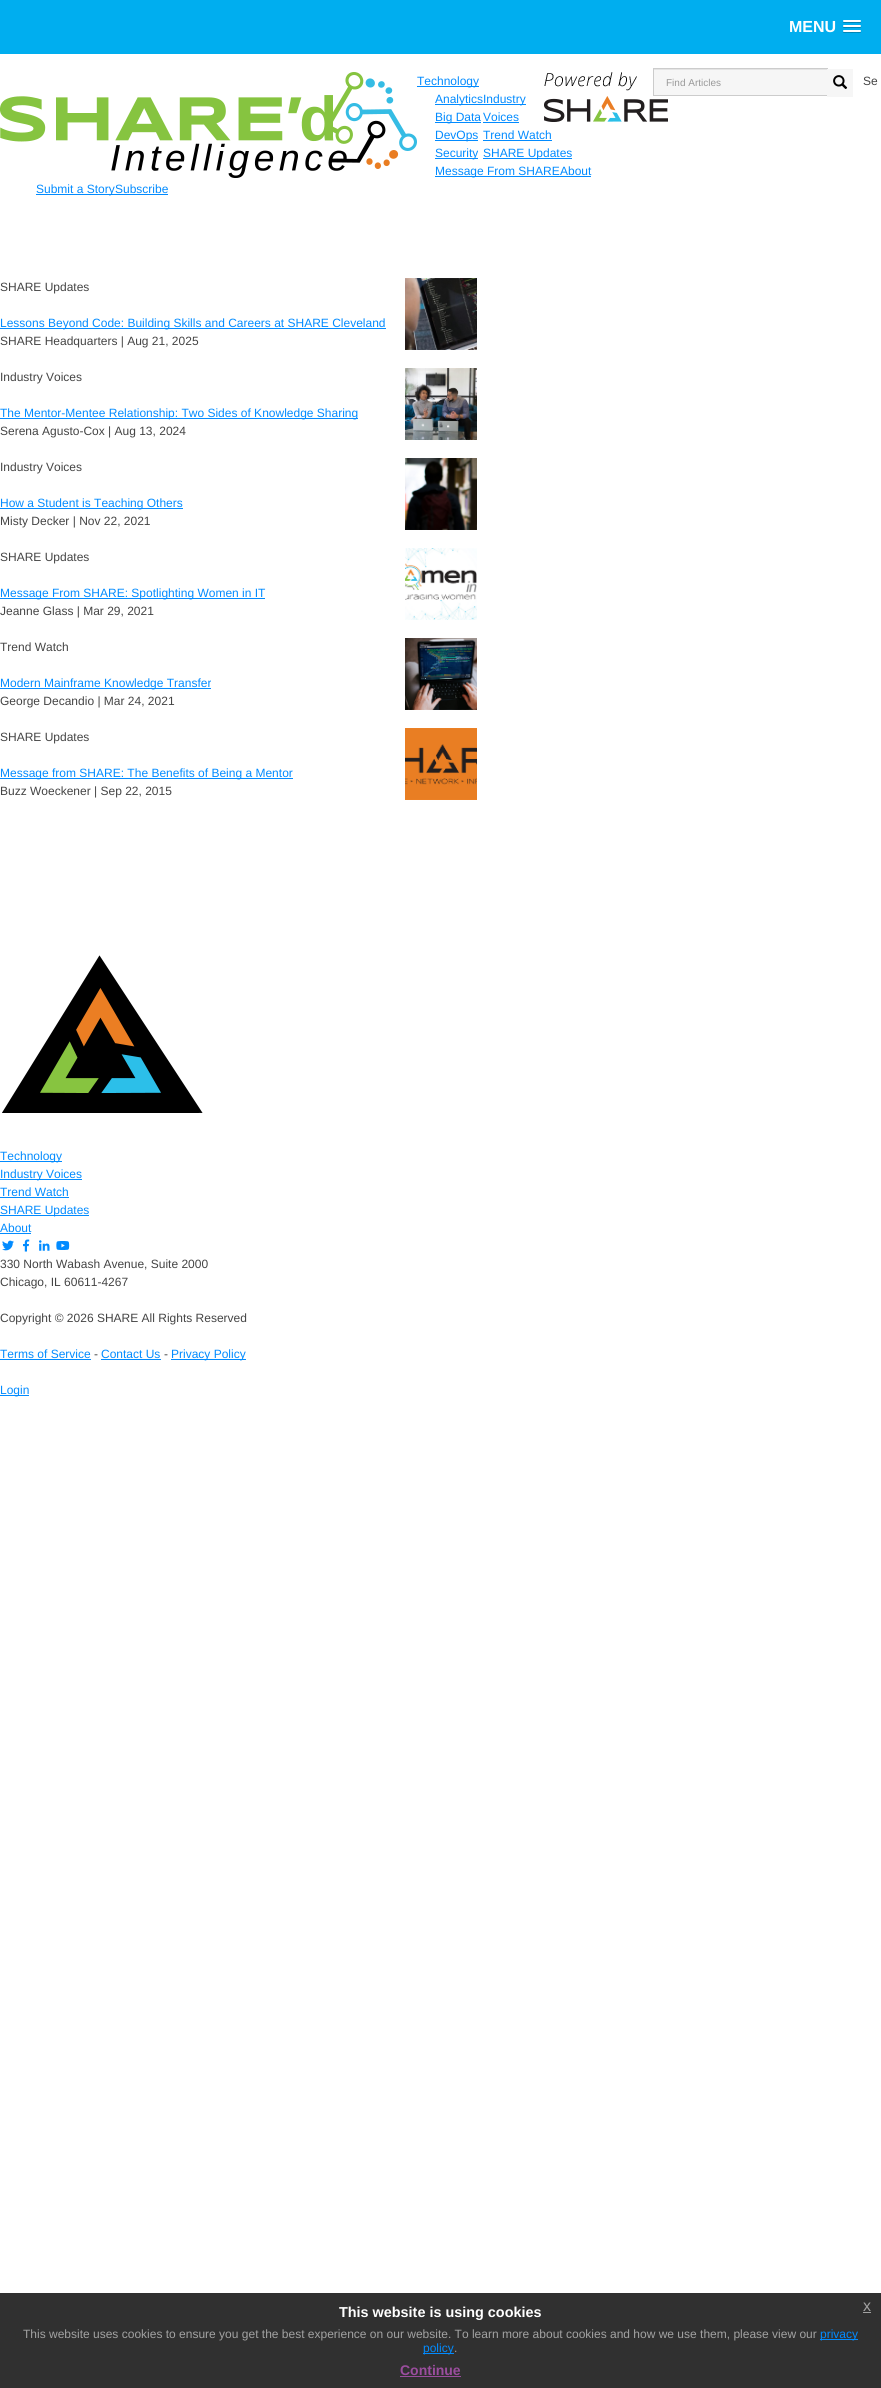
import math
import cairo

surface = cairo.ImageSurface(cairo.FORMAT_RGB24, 881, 2388)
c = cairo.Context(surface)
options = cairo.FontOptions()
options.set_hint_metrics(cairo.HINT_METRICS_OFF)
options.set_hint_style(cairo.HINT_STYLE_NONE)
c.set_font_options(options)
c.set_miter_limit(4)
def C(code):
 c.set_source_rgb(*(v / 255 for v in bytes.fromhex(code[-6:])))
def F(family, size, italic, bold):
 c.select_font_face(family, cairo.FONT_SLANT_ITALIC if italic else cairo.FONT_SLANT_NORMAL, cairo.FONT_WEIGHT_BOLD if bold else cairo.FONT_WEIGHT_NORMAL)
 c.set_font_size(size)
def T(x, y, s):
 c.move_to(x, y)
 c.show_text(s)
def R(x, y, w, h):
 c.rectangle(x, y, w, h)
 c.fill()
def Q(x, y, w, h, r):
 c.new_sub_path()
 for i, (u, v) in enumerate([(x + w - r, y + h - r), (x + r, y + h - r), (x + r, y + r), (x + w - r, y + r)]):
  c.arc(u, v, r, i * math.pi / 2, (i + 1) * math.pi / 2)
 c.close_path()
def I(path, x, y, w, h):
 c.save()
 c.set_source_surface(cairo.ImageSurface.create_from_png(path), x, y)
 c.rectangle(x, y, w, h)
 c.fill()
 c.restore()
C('ffffff')
c.paint()
C('00aeef')
R(0,0,881,54)
F('Liberation Sans',16,0,1)
C('ffffff')
T(789,32,'MENU')
C('0083b3')
c.new_path()
c.move_to(843,21.5)
c.curve_to(842,23.5,846.5,23,846.5,23)
c.line_to(857.5,23)
c.curve_to(857.5,23,862,23.5,861,21.5)
c.curve_to(860,22.5,853.5,22,852,22)
c.curve_to(850.5,22,844,22.5,843,21.5)
c.close_path()
c.fill()
C('ffffff')
Q(843,20,18,2,1)
c.fill()
C('0083b3')
c.new_path()
c.move_to(843,26.5)
c.curve_to(842,28.5,846.5,28,846.5,28)
c.line_to(857.5,28)
c.curve_to(857.5,28,862,28.5,861,26.5)
c.curve_to(860,27.5,853.5,27,852,27)
c.curve_to(850.5,27,844,27.5,843,26.5)
c.close_path()
c.fill()
C('ffffff')
Q(843,25,18,2,1)
c.fill()
C('0083b3')
c.new_path()
c.move_to(843,31.5)
c.curve_to(842,33.5,846.5,33,846.5,33)
c.line_to(857.5,33)
c.curve_to(857.5,33,862,33.5,861,31.5)
c.curve_to(860,32.5,853.5,32,852,32)
c.curve_to(850.5,32,844,32.5,843,31.5)
c.close_path()
c.fill()
C('ffffff')
Q(843,30,18,2,1)
c.fill()
C('028bff')
R(417,86,62,1)
F('Liberation Sans',12,0,0)
T(417,85,'Technology')
R(435,104,91,1)
T(435,103,'Analytics')
R(435,122,46,1)
T(435,121,'Big Data')
R(435,140,43,1)
T(435,139,'DevOps')
R(435,158,43,1)
T(435,157,'Security')
T(483,103,'Industry')
T(483,121,'Voices')
R(483,122,36,1)
T(483,139,'Trend Watch')
R(483,140,69,1)
R(483,158,89,1)
T(483,157,'SHARE Updates')
T(560,175,'About')
R(435,176,156,1)
T(435,175,'Message From SHARE')
R(36,194,132,1)
T(36,193,'Submit a Story')
T(115,193,'Subscribe')
I('1.png',0,72,417,106)
I('2.png',544,72,124,50)
C('f6f6f6')
R(654,70,173,25)
C('e4e4e4')
R(654,69,173,1)
c.rectangle(653.5,68.5,174,27)
C('cccccc')
c.set_line_width(1)
c.stroke()
F('Liberation Sans',10,0,0)
C('999999')
T(666,86,'Find Articles')
C('f6f6f6')
R(827,69,26,28)
I('3.png',833,75,15,14)
F('Liberation Sans',12,0,0)
C('444444')
T(863,85,'Se')
I('4.png',405,278,72,72)
T(0,291,'SHARE Updates')
C('028bff')
R(0,328,386,1)
T(0,327,'Lessons Beyond Code: Building Skills and Careers at SHARE Cleveland')
C('444444')
T(0,345,'SHARE Headquarters | Aug 21, 2025')
I('5.png',405,368,72,72)
T(0,381,'Industry Voices')
C('028bff')
R(0,418,358,1)
T(0,417,'The Mentor-Mentee Relationship: Two Sides of Knowledge Sharing')
C('444444')
T(0,435,'Serena Agusto-Cox | Aug 13, 2024')
I('6.png',405,458,72,72)
T(0,471,'Industry Voices')
C('028bff')
R(0,508,183,1)
T(0,507,'How a Student is Teaching Others')
C('444444')
T(0,525,'Misty Decker | Nov 22, 2021')
I('7.png',405,548,72,72)
T(0,561,'SHARE Updates')
C('028bff')
R(0,598,265,1)
T(0,597,'Message From SHARE: Spotlighting Women in IT')
C('444444')
T(0,615,'Jeanne Glass | Mar 29, 2021')
I('8.png',405,638,72,72)
T(0,651,'Trend Watch')
C('028bff')
R(0,688,211,1)
T(0,687,'Modern Mainframe Knowledge Transfer')
C('444444')
T(0,705,'George Decandio | Mar 24, 2021')
I('9.png',405,728,72,72)
T(0,741,'SHARE Updates')
C('028bff')
R(0,778,293,1)
T(0,777,'Message from SHARE: The Benefits of Being a Mentor')
C('444444')
T(0,795,'Buzz Woeckener | Sep 22, 2015')
I('10.png',2,955,201,158)
C('028bff')
R(0,1161,62,1)
T(0,1160,'Technology')
R(0,1179,82,1)
T(0,1178,'Industry Voices')
T(0,1196,'Trend Watch')
R(0,1197,69,1)
R(0,1215,89,1)
T(0,1214,'SHARE Updates')
T(0,1232,'About')
R(0,1233,31,1)
I('11.png',2,1240,12,11)
I('12.png',23,1239,7,13)
I('13.png',39,1240,11,11)
I('14.png',56,1241,14,9)
C('444444')
T(0,1268,'330 North Wabash Avenue, Suite 2000')
T(0,1286,'Chicago, IL 60611-4267')
T(0,1322,'Copyright © 2026 SHARE All Rights Reserved')
C('028bff')
T(0,1358,'Terms of Service')
R(0,1359,91,1)
C('444444')
T(94,1358,'-')
C('028bff')
T(101,1358,'Contact Us')
R(101,1359,60,1)
C('444444')
T(164,1358,'-')
C('028bff')
R(171,1359,75,1)
T(171,1358,'Privacy Policy')
R(0,1395,29,1)
T(0,1394,'Login')
C('303030')
R(0,2293,881,95)
F('Liberation Sans',14.4,0,1)
C('ffffff')
T(339,2317,'This website is using cookies')
F('Liberation Sans',16,0,0)
C('a2a2a2')
T(863,2311,'x')
R(863,2312,8,1)
F('Liberation Sans',12,0,0)
T(23,2338,'This website uses cookies to ensure you get the best experience on our website. To learn more about cookies and how we use them, please view our')
C('028bff')
R(820,2339,38,1)
T(820,2338,'privacy')
R(423,2353,31,1)
T(423,2352,'policy')
C('a2a2a2')
T(454,2352,'.')
F('Liberation Sans',14,0,1)
C('9a4d9d')
T(400,2375,'Continue')
R(400,2376,61,1)
surface.write_to_png('o.png')
